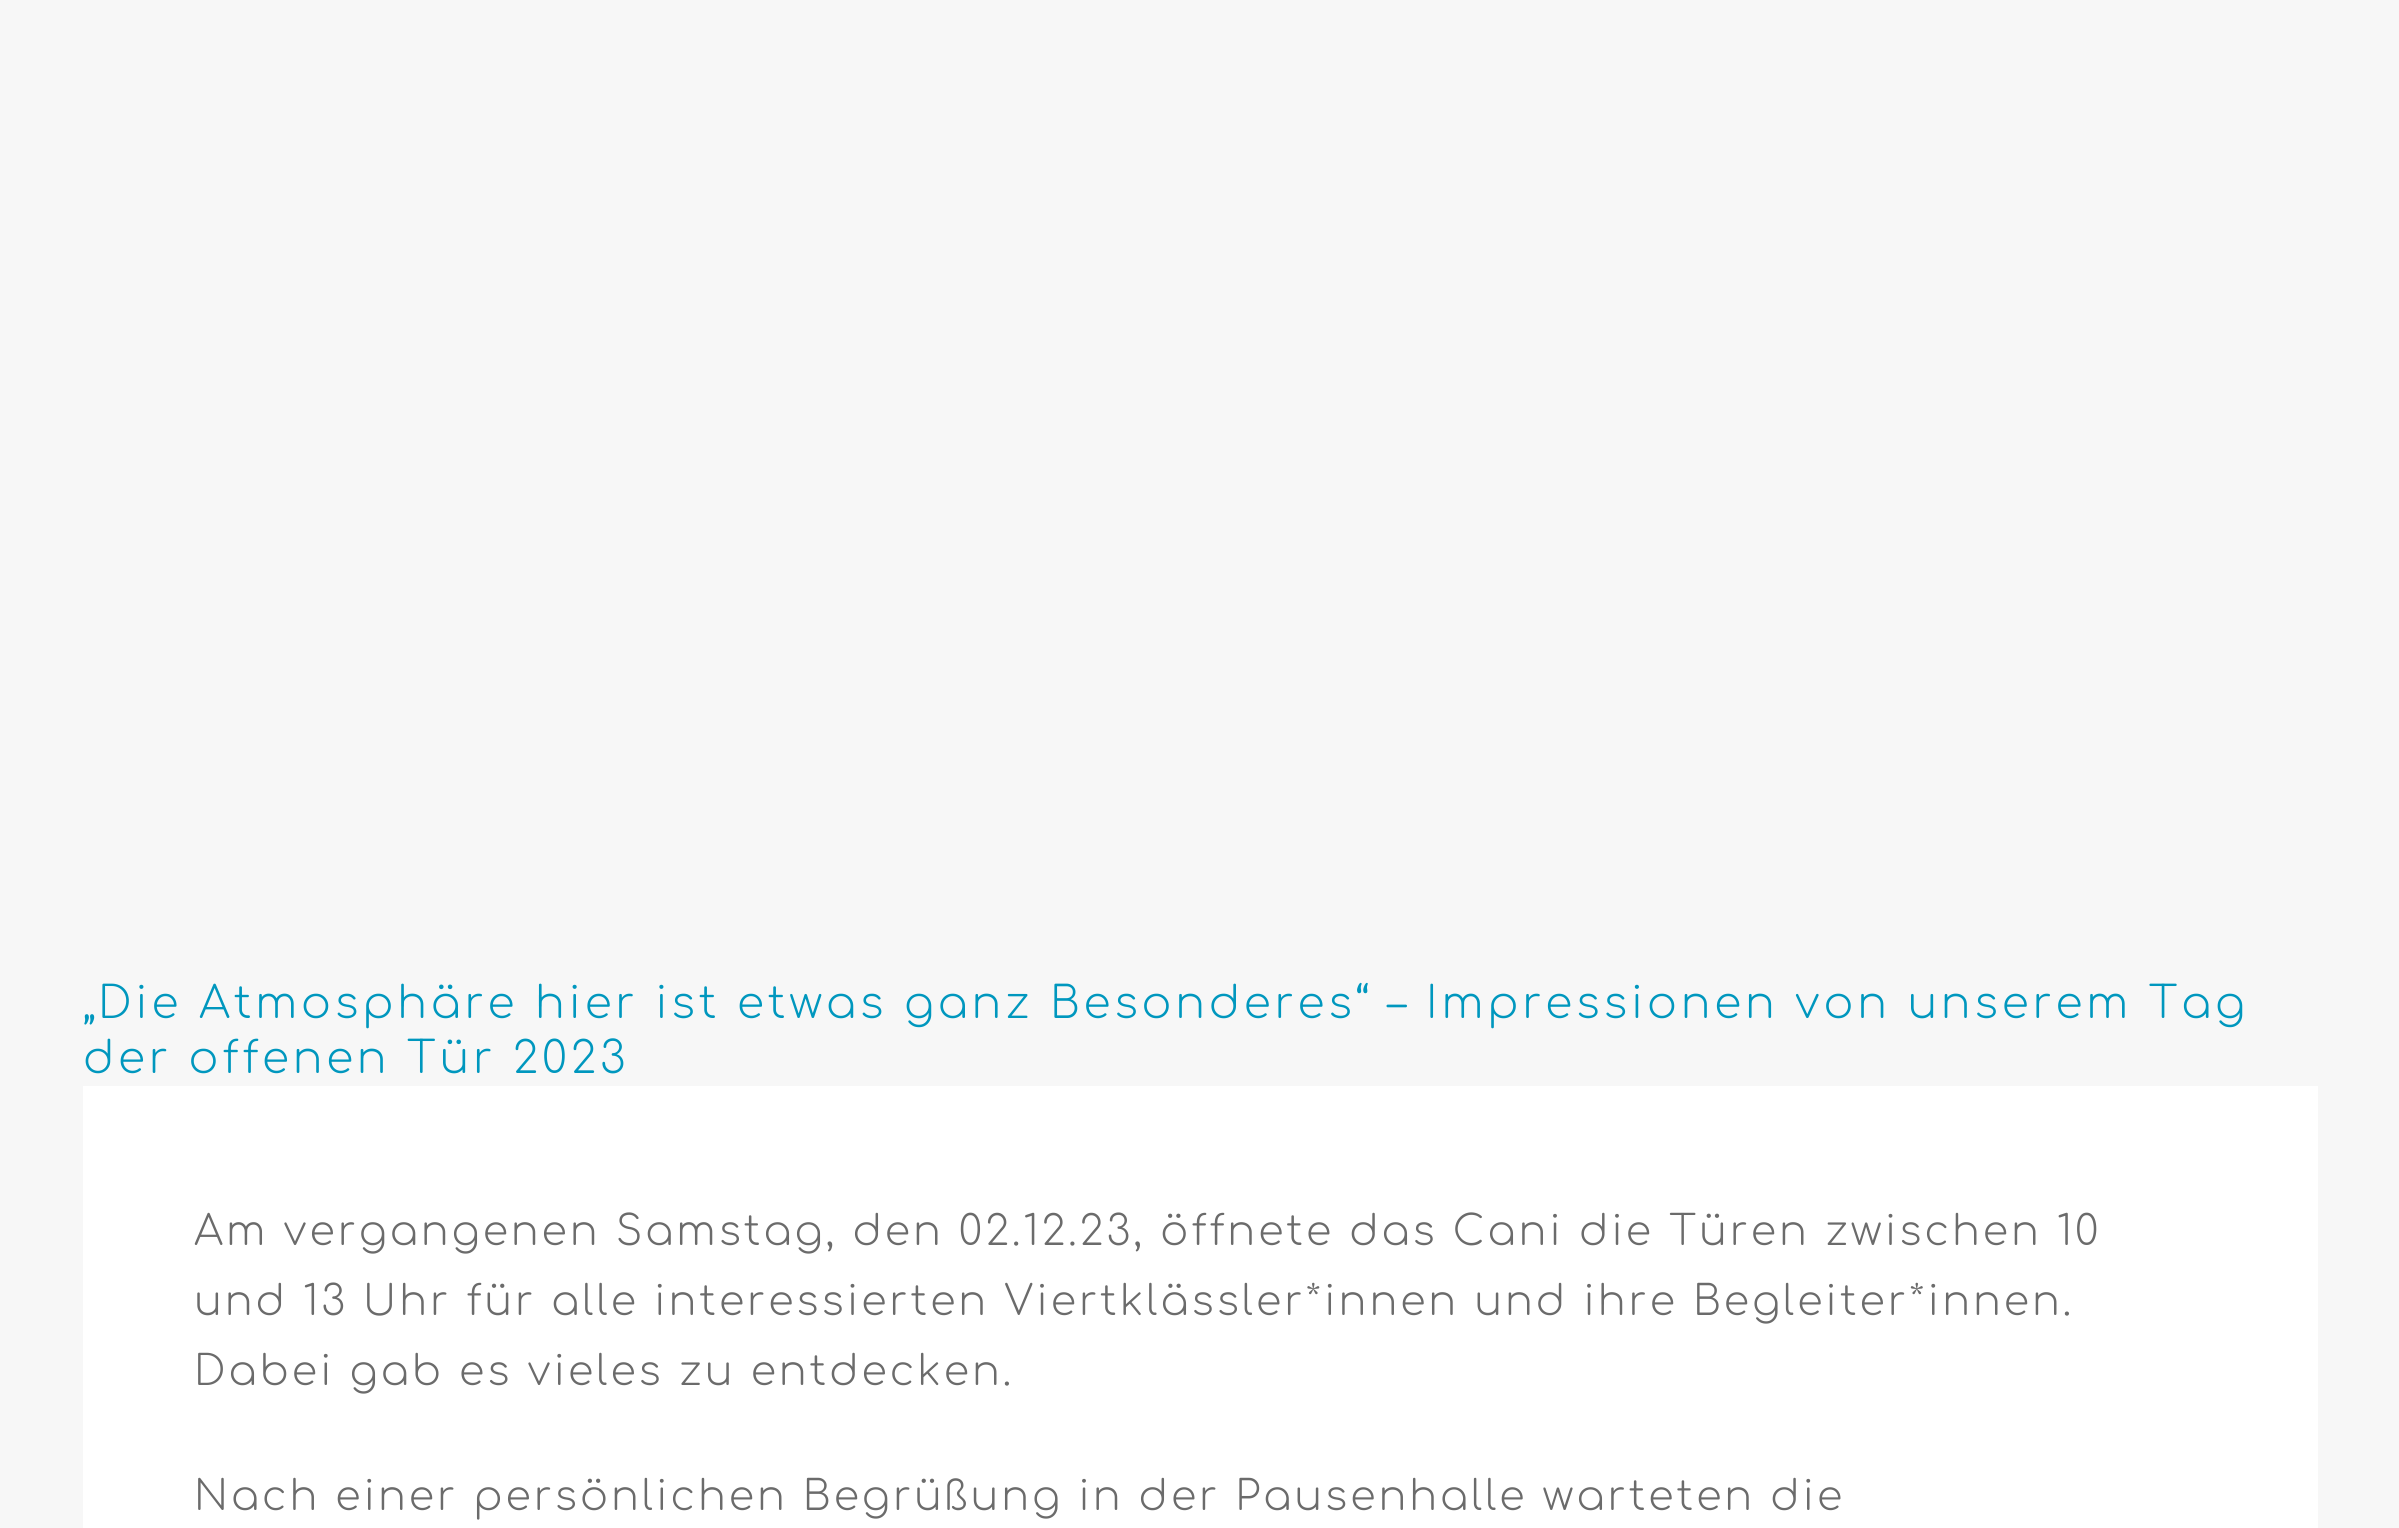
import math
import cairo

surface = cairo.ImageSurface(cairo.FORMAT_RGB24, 2399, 1528)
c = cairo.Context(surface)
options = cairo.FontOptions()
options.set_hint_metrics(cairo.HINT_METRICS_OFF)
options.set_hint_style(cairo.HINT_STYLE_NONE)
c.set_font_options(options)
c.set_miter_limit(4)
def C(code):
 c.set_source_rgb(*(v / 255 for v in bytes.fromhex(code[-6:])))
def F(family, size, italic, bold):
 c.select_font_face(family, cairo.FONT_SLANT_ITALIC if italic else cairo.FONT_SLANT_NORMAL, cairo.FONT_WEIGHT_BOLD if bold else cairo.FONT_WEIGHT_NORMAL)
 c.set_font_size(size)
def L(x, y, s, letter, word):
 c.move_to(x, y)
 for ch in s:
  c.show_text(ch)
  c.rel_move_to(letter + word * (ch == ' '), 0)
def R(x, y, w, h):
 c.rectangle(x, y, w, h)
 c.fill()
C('f7f7f7')
c.paint()
F('Comfortaa Light',44,0,0)
C('0097be')
L(83,1018,'„Die Atmosphäre hier ist etwas ganz Besonderes“ – Impressionen von unserem Tag',3.85,0)
L(83,1073,'der offenen Tür 2023',3.85,0)
C('ffffff')
R(83,1086,2235,442)
F('Comfortaa Light',41.25,0,0)
C('6b6b6b')
L(194,1245,'Am vergangenen Samstag, den 02.12.23, öffnete das Cani die Türen zwischen 10',3.03,0)
L(194,1315,'und 13 Uhr für alle interessierten Viertklässler*innen und ihre Begleiter*innen.',3.03,0)
L(194,1385,'Dabei gab es vieles zu entdecken.',3.03,0)
L(194,1510,'Nach einer persönlichen Begrüßung in der Pausenhalle warteten die',3.03,0)
surface.write_to_png('o.png')
